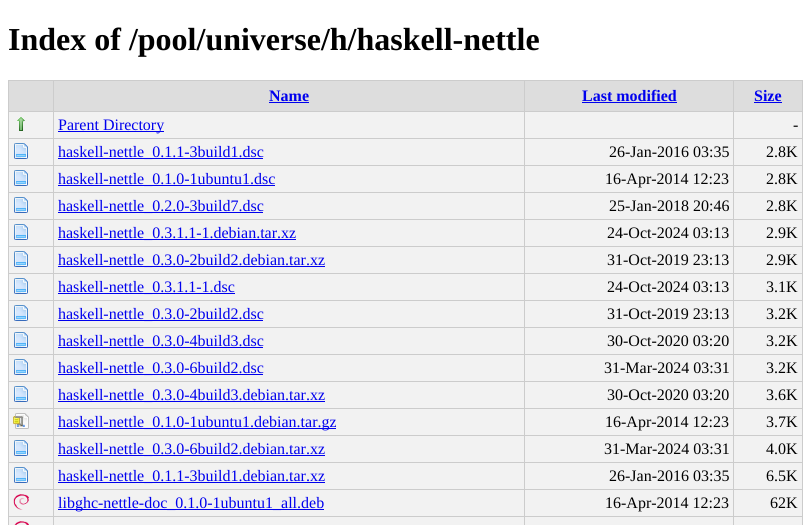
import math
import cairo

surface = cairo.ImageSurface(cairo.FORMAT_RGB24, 811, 525)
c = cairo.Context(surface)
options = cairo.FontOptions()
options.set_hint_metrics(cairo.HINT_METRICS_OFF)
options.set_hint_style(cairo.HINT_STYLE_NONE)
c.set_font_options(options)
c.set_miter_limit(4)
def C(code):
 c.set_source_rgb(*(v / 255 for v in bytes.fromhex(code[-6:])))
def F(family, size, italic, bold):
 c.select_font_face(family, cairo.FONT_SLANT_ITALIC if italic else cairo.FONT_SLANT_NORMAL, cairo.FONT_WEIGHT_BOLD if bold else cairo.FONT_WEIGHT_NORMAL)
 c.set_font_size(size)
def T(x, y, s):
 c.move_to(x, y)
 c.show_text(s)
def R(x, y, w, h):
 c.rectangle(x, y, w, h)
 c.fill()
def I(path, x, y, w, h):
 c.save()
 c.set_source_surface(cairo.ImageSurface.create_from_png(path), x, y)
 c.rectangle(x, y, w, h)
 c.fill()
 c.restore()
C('ffffff')
c.paint()
F('Liberation Serif',32,0,1)
C('000000')
T(8,50,'Index of /pool/universe/h/haskell-nettle')
C('dddddd')
R(9,81,44,30)
C('cccccc')
R(733,80,70,1)
R(733,111,70,1)
C('f2f2f2')
R(9,112,793,26)
C('cccccc')
R(733,138,70,1)
C('f2f2f2')
R(9,139,793,26)
C('cccccc')
R(733,165,70,1)
C('f2f2f2')
R(9,166,793,26)
C('cccccc')
R(733,192,70,1)
C('f2f2f2')
R(9,193,793,26)
C('cccccc')
R(733,219,70,1)
C('f2f2f2')
R(9,220,793,26)
C('cccccc')
R(733,246,70,1)
C('f2f2f2')
R(9,247,793,26)
C('cccccc')
R(733,273,70,1)
C('f2f2f2')
R(9,274,793,26)
C('cccccc')
R(733,300,70,1)
C('f2f2f2')
R(9,301,793,26)
C('cccccc')
R(733,327,70,1)
C('f2f2f2')
R(9,328,793,26)
C('cccccc')
R(733,354,70,1)
C('f2f2f2')
R(9,355,793,26)
C('cccccc')
R(733,381,70,1)
C('f2f2f2')
R(9,382,793,26)
C('cccccc')
R(733,408,70,1)
C('f2f2f2')
R(9,409,793,26)
C('cccccc')
R(733,435,70,1)
C('f2f2f2')
R(9,436,793,26)
C('cccccc')
R(733,462,70,1)
C('f2f2f2')
R(9,463,793,26)
C('cccccc')
R(733,489,70,1)
C('f2f2f2')
R(9,490,793,26)
C('cccccc')
R(733,516,70,1)
C('f2f2f2')
R(9,517,793,8)
C('cccccc')
R(733,516,1,9)
R(524,516,210,1)
R(733,489,1,28)
R(524,489,210,1)
R(733,462,1,28)
R(524,462,210,1)
R(733,435,1,28)
R(524,435,210,1)
R(733,408,1,28)
R(524,408,210,1)
R(733,381,1,28)
R(524,381,210,1)
R(733,354,1,28)
R(524,354,210,1)
R(733,327,1,28)
R(524,327,210,1)
R(733,300,1,28)
R(524,300,210,1)
R(733,273,1,28)
R(524,273,210,1)
R(733,246,1,28)
R(524,246,210,1)
R(733,219,1,28)
R(524,219,210,1)
R(733,192,1,28)
R(524,192,210,1)
R(733,165,1,28)
R(524,165,210,1)
R(733,138,1,28)
R(524,138,210,1)
R(733,111,1,28)
R(524,111,210,1)
R(733,80,1,32)
R(524,80,210,1)
R(524,516,1,9)
R(53,516,472,1)
R(524,489,1,28)
R(53,489,472,1)
R(524,462,1,28)
R(53,462,472,1)
R(524,435,1,28)
R(53,435,472,1)
R(524,408,1,28)
R(53,408,472,1)
R(524,381,1,28)
R(53,381,472,1)
R(524,354,1,28)
R(53,354,472,1)
R(524,327,1,28)
R(53,327,472,1)
R(524,300,1,28)
R(53,300,472,1)
R(524,273,1,28)
R(53,273,472,1)
R(524,246,1,28)
R(53,246,472,1)
R(524,219,1,28)
R(53,219,472,1)
R(524,192,1,28)
R(53,192,472,1)
R(524,165,1,28)
R(53,165,472,1)
R(524,138,1,28)
R(53,138,472,1)
R(524,111,1,28)
R(53,111,472,1)
R(524,80,1,32)
R(53,80,472,1)
R(53,516,1,9)
R(8,516,46,1)
R(53,489,1,28)
R(8,489,46,1)
R(53,462,1,28)
R(8,462,46,1)
R(53,435,1,28)
R(8,435,46,1)
R(53,408,1,28)
R(8,408,46,1)
R(53,381,1,28)
R(8,381,46,1)
R(53,354,1,28)
R(8,354,46,1)
R(53,327,1,28)
R(8,327,46,1)
R(53,300,1,28)
R(8,300,46,1)
R(53,273,1,28)
R(8,273,46,1)
R(53,246,1,28)
R(8,246,46,1)
R(53,219,1,28)
R(8,219,46,1)
R(53,192,1,28)
R(8,192,46,1)
R(53,165,1,28)
R(8,165,46,1)
R(53,138,1,28)
R(8,138,46,1)
R(53,111,1,28)
R(8,111,46,1)
R(53,80,1,32)
R(8,80,46,1)
R(8,516,1,9)
R(8,489,1,28)
R(8,462,1,28)
R(8,435,1,28)
R(8,408,1,28)
R(8,381,1,28)
R(8,354,1,28)
R(8,327,1,28)
R(8,300,1,28)
R(8,273,1,28)
R(8,246,1,28)
R(8,219,1,28)
R(8,192,1,28)
R(8,165,1,28)
R(8,138,1,28)
R(8,111,1,28)
R(8,80,1,32)
C('dddddd')
R(54,81,470,30)
F('Liberation Serif',16,0,1)
C('0000ee')
T(269,101,'Name')
R(269,102,40,1)
C('dddddd')
R(525,81,208,30)
C('0000ee')
T(582,101,'Last modified')
R(582,102,95,1)
C('dddddd')
R(734,81,68,30)
C('cccccc')
R(802,516,1,9)
R(802,489,1,28)
R(802,462,1,28)
R(802,435,1,28)
R(802,408,1,28)
R(802,381,1,28)
R(802,354,1,28)
R(802,327,1,28)
R(802,300,1,28)
R(802,273,1,28)
R(802,246,1,28)
R(802,219,1,28)
R(802,192,1,28)
R(802,165,1,28)
R(802,138,1,28)
R(802,111,1,28)
R(802,80,1,32)
C('0000ee')
T(754,101,'Size')
R(754,102,28,1)
I('1.png',17,117,8,14)
R(58,131,106,1)
F('Liberation Serif',16,0,0)
T(58,130,'Parent Directory')
C('000000')
T(793,130,'-')
I('2.png',14,143,14,16)
C('0000ee')
R(58,158,205,1)
T(58,157,'haskell-nettle_0.1.1-3build1.dsc')
C('000000')
T(609,157,'26-Jan-2016 03:35')
T(766,157,'2.8K')
I('2.png',14,170,14,16)
C('0000ee')
R(58,185,217,1)
T(58,184,'haskell-nettle_0.1.0-1ubuntu1.dsc')
C('000000')
T(605,184,'16-Apr-2014 12:23')
T(766,184,'2.8K')
I('2.png',14,197,14,16)
C('0000ee')
R(58,212,205,1)
T(58,211,'haskell-nettle_0.2.0-3build7.dsc')
C('000000')
T(609,211,'25-Jan-2018 20:46')
T(766,211,'2.8K')
I('2.png',14,224,14,16)
C('0000ee')
R(58,239,238,1)
T(58,238,'haskell-nettle_0.3.1.1-1.debian.tar.xz')
C('000000')
T(607,238,'24-Oct-2024 03:13')
T(766,238,'2.9K')
I('2.png',14,251,14,16)
C('0000ee')
R(58,266,267,1)
T(58,265,'haskell-nettle_0.3.0-2build2.debian.tar.xz')
C('000000')
T(607,265,'31-Oct-2019 23:13')
T(766,265,'2.9K')
I('2.png',14,278,14,16)
C('0000ee')
R(58,293,177,1)
T(58,292,'haskell-nettle_0.3.1.1-1.dsc')
C('000000')
T(607,292,'24-Oct-2024 03:13')
T(766,292,'3.1K')
I('2.png',14,305,14,16)
C('0000ee')
R(58,320,205,1)
T(58,319,'haskell-nettle_0.3.0-2build2.dsc')
C('000000')
T(607,319,'31-Oct-2019 23:13')
T(766,319,'3.2K')
I('2.png',14,332,14,16)
C('0000ee')
R(58,347,205,1)
T(58,346,'haskell-nettle_0.3.0-4build3.dsc')
C('000000')
T(607,346,'30-Oct-2020 03:20')
T(766,346,'3.2K')
I('2.png',14,359,14,16)
C('0000ee')
R(58,374,205,1)
T(58,373,'haskell-nettle_0.3.0-6build2.dsc')
C('000000')
T(604,373,'31-Mar-2024 03:31')
T(766,373,'3.2K')
I('2.png',14,386,14,16)
C('0000ee')
R(58,401,267,1)
T(58,400,'haskell-nettle_0.3.0-4build3.debian.tar.xz')
C('000000')
T(607,400,'30-Oct-2020 03:20')
T(766,400,'3.6K')
I('3.png',13,413,16,16)
C('0000ee')
R(58,428,278,1)
T(58,427,'haskell-nettle_0.1.0-1ubuntu1.debian.tar.gz')
C('000000')
T(605,427,'16-Apr-2014 12:23')
T(766,427,'3.7K')
I('2.png',14,440,14,16)
C('0000ee')
R(58,455,267,1)
T(58,454,'haskell-nettle_0.3.0-6build2.debian.tar.xz')
C('000000')
T(604,454,'31-Mar-2024 03:31')
T(766,454,'4.0K')
I('2.png',14,467,14,16)
C('0000ee')
R(58,482,267,1)
T(58,481,'haskell-nettle_0.1.1-3build1.debian.tar.xz')
C('000000')
T(609,481,'26-Jan-2016 03:35')
T(766,481,'6.5K')
I('4.png',13,494,16,16)
C('0000ee')
R(58,509,266,1)
T(58,508,'libghc-nettle-doc_0.1.0-1ubuntu1_all.deb')
C('000000')
T(605,508,'16-Apr-2014 12:23')
T(770,508,'62K')
I('5.png',14,521,15,4)
surface.write_to_png('o.png')
